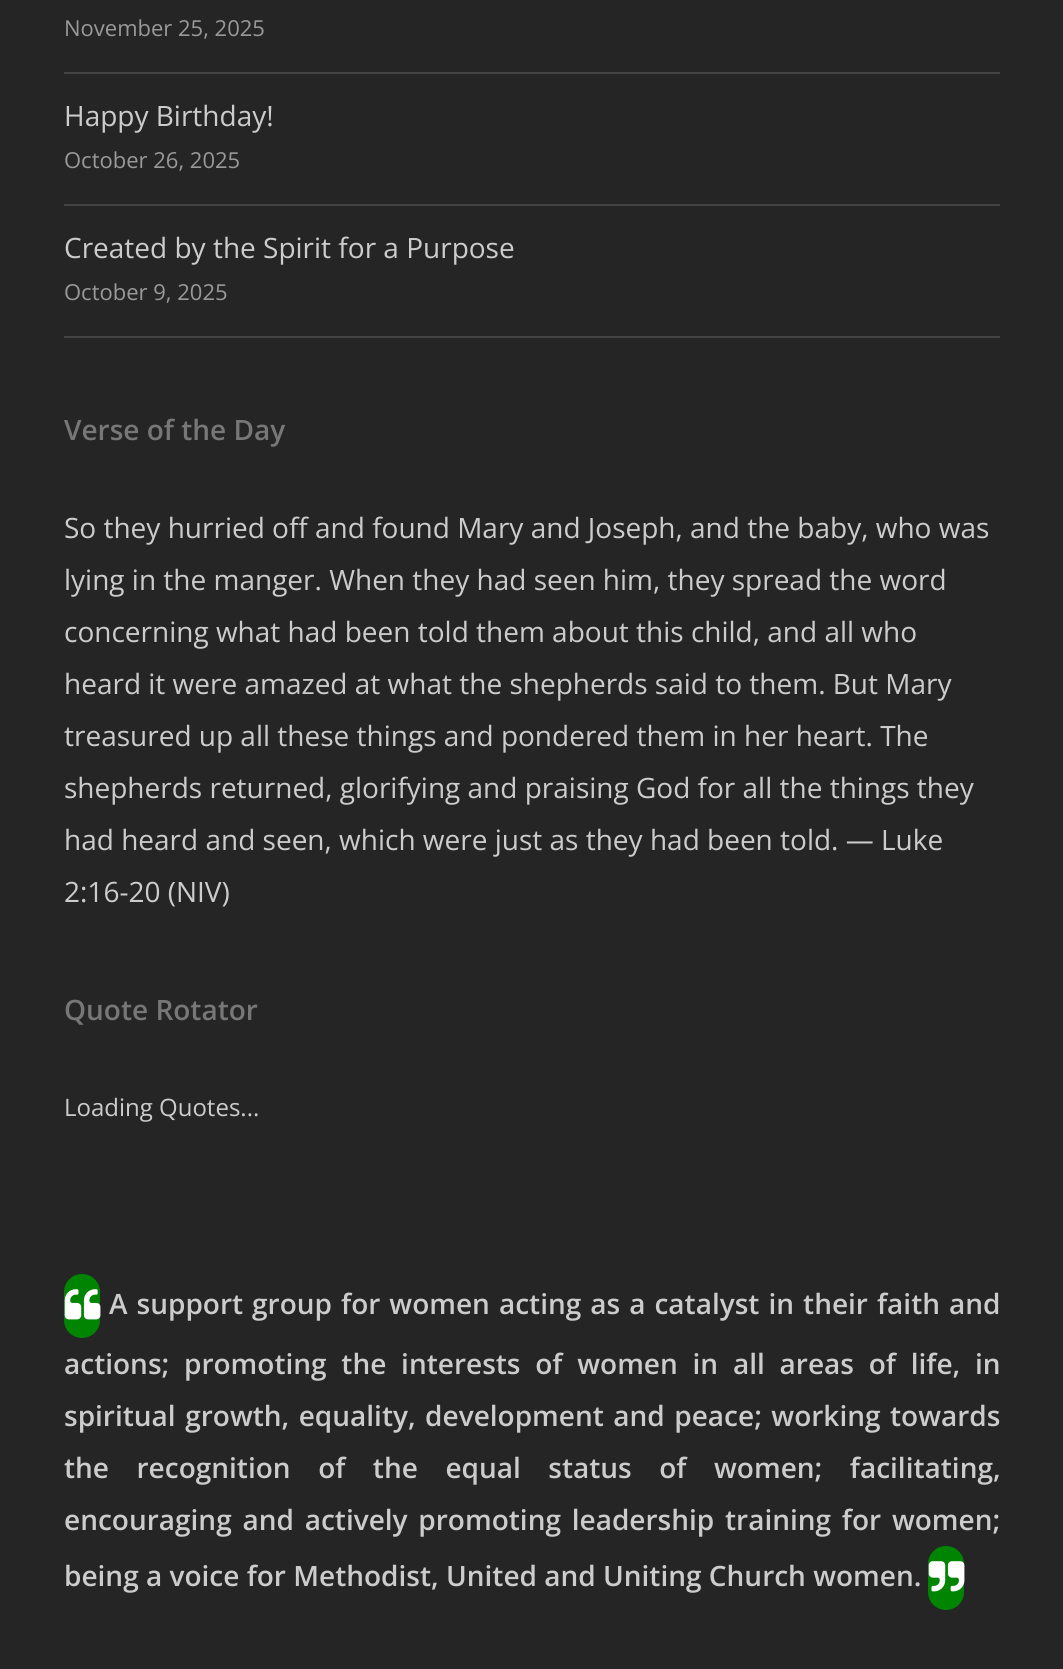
import math
import cairo

surface = cairo.ImageSurface(cairo.FORMAT_RGB24, 1063, 1669)
c = cairo.Context(surface)
options = cairo.FontOptions()
options.set_hint_metrics(cairo.HINT_METRICS_OFF)
options.set_hint_style(cairo.HINT_STYLE_NONE)
c.set_font_options(options)
c.set_miter_limit(4)
def C(code):
 c.set_source_rgb(*(v / 255 for v in bytes.fromhex(code[-6:])))
def F(family, size, italic, bold):
 c.select_font_face(family, cairo.FONT_SLANT_ITALIC if italic else cairo.FONT_SLANT_NORMAL, cairo.FONT_WEIGHT_BOLD if bold else cairo.FONT_WEIGHT_NORMAL)
 c.set_font_size(size)
def T(x, y, s):
 c.move_to(x, y)
 c.show_text(s)
def L(x, y, s, letter, word):
 c.move_to(x, y)
 for ch in s:
  c.show_text(ch)
  c.rel_move_to(letter + word * (ch == ' '), 0)
def R(x, y, w, h):
 c.rectangle(x, y, w, h)
 c.fill()
def Q(x, y, w, h, r):
 c.new_sub_path()
 for i, (u, v) in enumerate([(x + w - r, y + h - r), (x + r, y + h - r), (x + r, y + r), (x + w - r, y + r)]):
  c.arc(u, v, r, i * math.pi / 2, (i + 1) * math.pi / 2)
 c.close_path()
def I(path, x, y, w, h):
 c.save()
 c.set_source_surface(cairo.ImageSurface.create_from_png(path), x, y)
 c.rectangle(x, y, w, h)
 c.fill()
 c.restore()
C('252525')
c.paint()
C('444444')
R(64,72,936,2)
F('Open Sans',22,0,0)
C('999999')
T(64,36,'November 25, 2025')
C('444444')
R(64,204,936,2)
F('Open Sans',28,0,0)
C('cccccc')
T(64,126,'Happy Birthday!')
F('Open Sans',22,0,0)
C('999999')
T(64,168,'October 26, 2025')
C('444444')
R(64,336,936,2)
F('Open Sans',28,0,0)
C('cccccc')
T(64,258,'Created by the Spirit for a Purpose')
F('Open Sans',22,0,0)
C('999999')
T(64,300,'October 9, 2025')
F('Open Sans SemiBold',28,0,0)
C('777777')
T(64,440,'Verse of the Day')
F('Open Sans',28,0,0)
C('cccccc')
T(64,538,'So they hurried off and found Mary and Joseph, and the baby, who was')
T(64,590,'lying in the manger. When they had seen him, they spread the word')
T(64,642,'concerning what had been told them about this child, and all who')
T(64,694,'heard it were amazed at what the shepherds said to them. But Mary')
T(64,746,'treasured up all these things and pondered them in her heart. The')
T(64,798,'shepherds returned, glorifying and praising God for all the things they')
T(64,850,'had heard and seen, which were just as they had been told. — Luke')
T(64,902,'2:16-20 (NIV)')
F('Open Sans SemiBold',28,0,0)
C('777777')
T(64,1020,'Quote Rotator')
F('Open Sans',24,0,0)
C('cccccc')
T(64,1116,'Loading Quotes...')
C('008401')
Q(64,1274,36,64,18)
c.fill()
I('1.png',64,1289,37,31)
F('Open Sans SemiBold',28,0,0)
C('cccccc')
L(109,1314,'A support group for women acting as a catalyst in their faith and',0,1.75)
L(64,1374,'actions; promoting the interests of women in all areas of life, in',0,7.5)
L(64,1426,'spiritual growth, equality, development and peace; working towards',0,2.25)
L(64,1478,'the recognition of the equal status of women; facilitating,',0,20.25)
L(64,1530,'encouraging and actively promoting leadership training for women;',0,3.5)
T(64,1586,'being a voice for Methodist, United and Uniting Church women.')
C('008401')
Q(928,1546,36,64,18)
c.fill()
I('2.png',928,1561,37,31)
surface.write_to_png('o.png')
